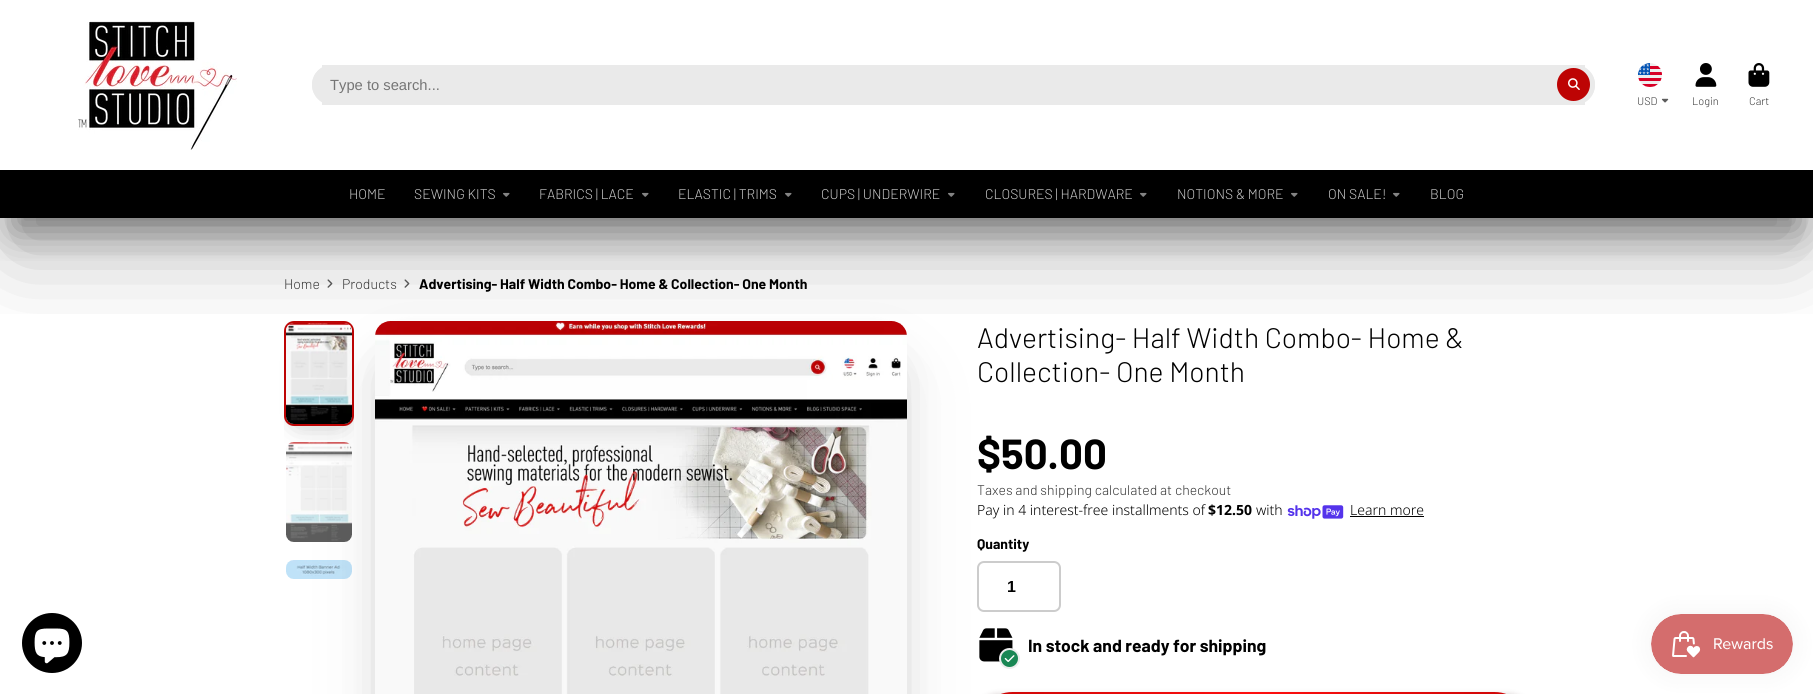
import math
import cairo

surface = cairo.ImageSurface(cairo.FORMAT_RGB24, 1813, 694)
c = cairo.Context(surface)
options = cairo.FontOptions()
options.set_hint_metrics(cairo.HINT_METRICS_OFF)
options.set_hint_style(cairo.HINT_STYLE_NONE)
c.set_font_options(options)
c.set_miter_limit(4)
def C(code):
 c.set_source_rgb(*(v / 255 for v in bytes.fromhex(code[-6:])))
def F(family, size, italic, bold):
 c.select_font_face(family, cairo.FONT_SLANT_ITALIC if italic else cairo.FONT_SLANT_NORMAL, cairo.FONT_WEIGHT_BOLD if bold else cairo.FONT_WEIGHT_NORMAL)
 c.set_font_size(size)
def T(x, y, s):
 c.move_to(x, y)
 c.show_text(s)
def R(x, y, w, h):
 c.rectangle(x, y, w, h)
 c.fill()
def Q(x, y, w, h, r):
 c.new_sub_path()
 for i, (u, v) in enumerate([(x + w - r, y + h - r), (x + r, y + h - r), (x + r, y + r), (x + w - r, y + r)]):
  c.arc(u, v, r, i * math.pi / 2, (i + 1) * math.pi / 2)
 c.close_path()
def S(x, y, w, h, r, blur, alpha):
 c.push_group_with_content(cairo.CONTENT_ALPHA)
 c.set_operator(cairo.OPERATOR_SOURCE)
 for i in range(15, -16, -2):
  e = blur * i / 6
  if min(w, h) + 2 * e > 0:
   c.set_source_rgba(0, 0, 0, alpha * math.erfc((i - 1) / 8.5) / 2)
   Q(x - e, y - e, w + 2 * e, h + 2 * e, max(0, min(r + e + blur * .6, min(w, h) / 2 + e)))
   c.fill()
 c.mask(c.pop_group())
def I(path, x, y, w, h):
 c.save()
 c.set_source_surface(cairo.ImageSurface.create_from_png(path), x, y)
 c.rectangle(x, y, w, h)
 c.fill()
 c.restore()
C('ffffff')
c.paint()
I('8.png',327,279,6,9)
I('8.png',404,279,6,9)
c.save()
c.rectangle(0,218,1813,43)
c.clip()
C('000000')
S(14,40,1785,190,0,19,.4)
c.restore()
c.save()
c.rectangle(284,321,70,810)
c.clip()
C('000000')
S(298,342,42,77,0,14,.3)
c.restore()
C('000000')
S(305,356,28,63,0,14,.1)
Q(285,322,68,103,9)
C('bd0404')
c.stroke()
I('10.png',286,323,66,101)
I('11.png',286,442,66,100)
I('12.png',286,560,66,19)
C('000000')
S(401,374,480,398,0,26,.3)
S(393,382,497,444,0,44,.1)
I('9.png',375,321,532,373)
c.save()
c.rectangle(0,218,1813,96)
c.clip()
S(14,58,1785,190,0,44,.3)
c.restore()
I('1.png',78,21,159,129)
C('eaeaea')
Q(312,65,1283,40,20)
c.fill()
R(322,65,1263,40)
Q(312,65,1283,39,19.5)
c.fill()
F('Liberation Sans',14.75,0,0)
C('757575')
T(330,90,'Type to search...')
C('bd0404')
c.new_path()
c.arc(1573.5,84.5,16.5,0,2 * math.pi)
c.fill()
I('2.png',1568,78,12,12)
I('3.png',1638,63,24,24)
F('Barlow Light',11,0,0)
C('333333')
T(1637,105,'USD')
I('4.png',1661,98,8,5)
I('5.png',1695,63,22,24)
T(1692,105,'Login')
I('6.png',1748,63,22,24)
T(1749,105,'Cart')
C('000000')
R(0,170,1813,48)
F('Barlow Light',14,0,0)
C('cccccc')
T(349,199,'HOME')
T(414,199,'SEWING KITS')
I('7.png',503,192,7,5)
T(539,199,'FABRICS | LACE')
I('7.png',642,192,7,5)
T(678,199,'ELASTIC | TRIMS')
I('7.png',785,192,7,5)
T(821,199,'CUPS | UNDERWIRE')
I('7.png',948,192,7,5)
T(985,199,'CLOSURES | HARDWARE')
I('7.png',1140,192,7,5)
T(1177,199,'NOTIONS & MORE')
I('7.png',1291,192,7,5)
T(1328,199,'ON SALE!')
I('7.png',1393,192,7,5)
T(1430,199,'BLOG')
C('333333')
T(284,289,'Home')
T(342,289,'Products')
F('Barlow',14,0,1)
C('000000')
T(419,289,'Advertising- Half Width Combo- Home & Collection- One Month')
F('Barlow Light',28.2,0,0)
T(977,348,'Advertising- Half Width Combo- Home &')
T(977,382,'Collection- One Month')
F('Barlow',42,0,1)
T(977,469,'$50.00')
F('Barlow Light',14,0,0)
C('333333')
T(977,495,'Taxes and shipping calculated at checkout')
F('Noto Sans Light',14,0,0)
C('000000')
T(977,515,'Pay in 4 interest-free installments of')
F('Noto Sans',14,0,1)
T(1208,515,'$12.50')
F('Noto Sans Light',14,0,0)
T(1256,515,'with')
I('13.png',1287,505,57,14)
T(1350,515,'Learn more')
R(1350,516,74,1)
F('Barlow',14,0,1)
T(977,549,'Quantity')
Q(978,562,82,49,6)
C('cccccc')
c.stroke()
F('Liberation Sans',16,0,1)
C('000000')
T(1007,592,'1')
I('14.png',979,628,34,34)
C('198754')
c.arc(1009.5,658.5,9.5,0,2 * math.pi)
c.fill_preserve()
C('ededed')
c.stroke()
I('15.png',1004,655,11,7)
F('Barlow',17.5,0,1)
C('000000')
T(1028,652,'In stock and ready for shipping')
C('270101')
S(977,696,553,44,35.5,3.5,.3)
gradient = cairo.RadialGradient(0,0,0,0,0,1)
gradient.set_matrix(cairo.Matrix(1 / 391, 0, 0, 1 / 100, -1 * 1254 / 391, -1 * 692 / 100))
gradient.add_color_stop_rgba(0,1,0.059,0.059,1)
gradient.add_color_stop_rgba(.9,0.741,0.016,0.016,1)
c.set_source(gradient)
Q(977,692,553,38,35.5)
c.fill()
C('000000')
c.arc(52,643,30,0,2 * math.pi)
c.fill()
I('16.png',34,628,36,36)
C('000000')
S(1651,614,142,60,30,12.5,.05)
I('17.png',1651,614,142,60)
surface.write_to_png('o.png')
